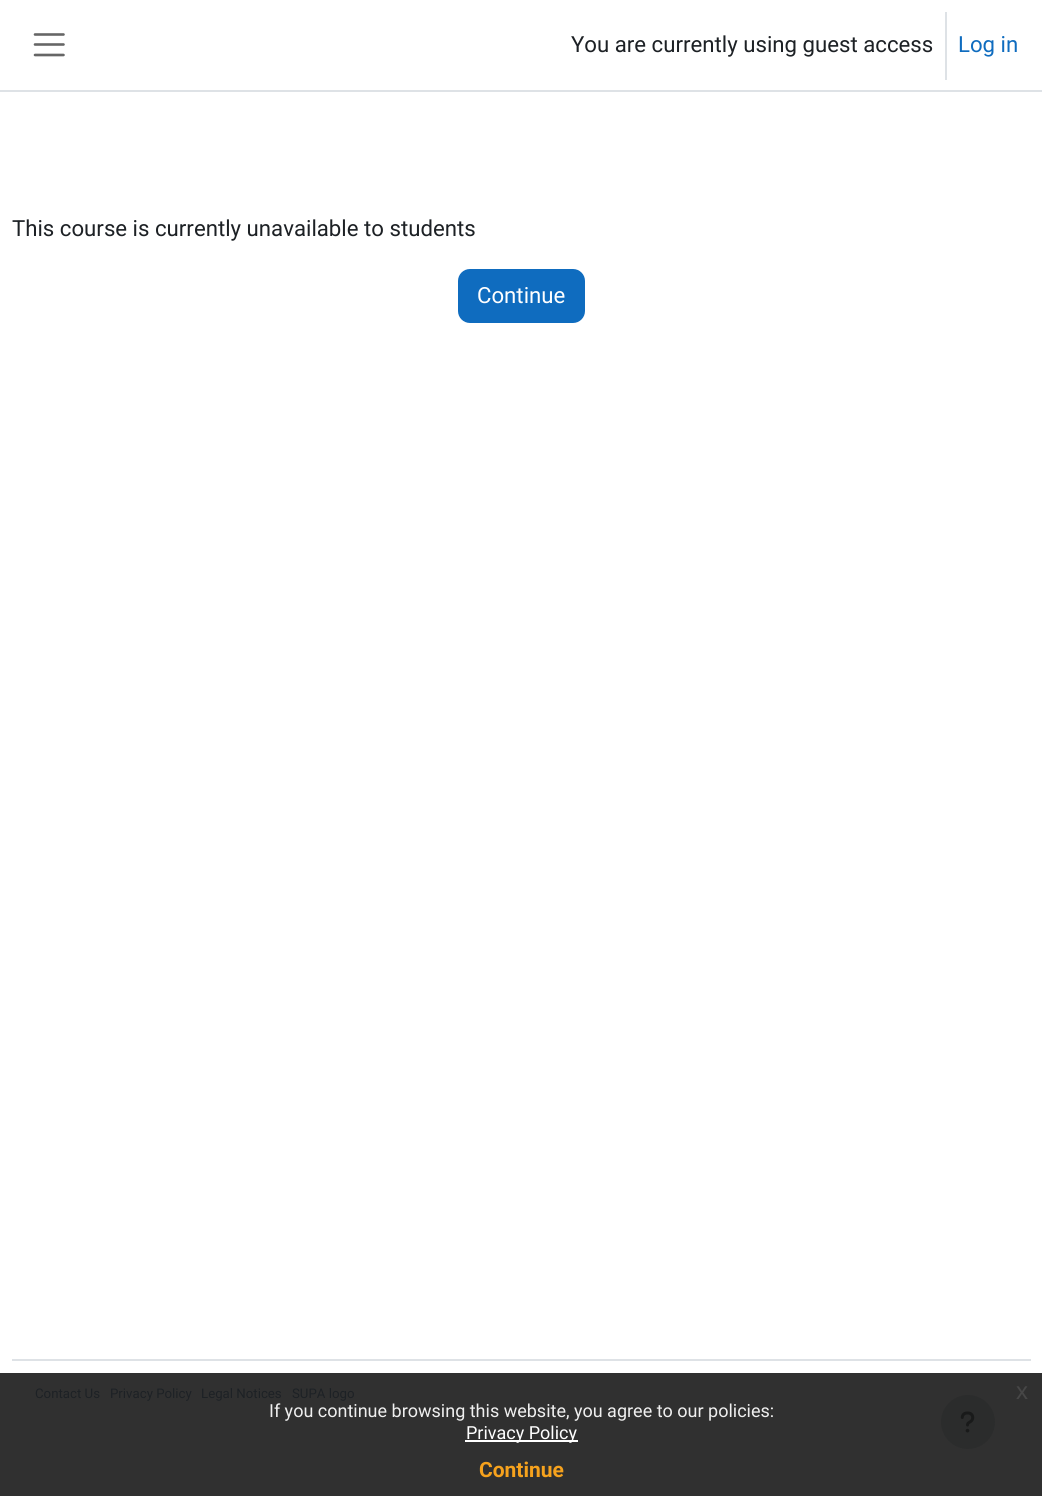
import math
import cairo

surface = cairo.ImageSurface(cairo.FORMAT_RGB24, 1042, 1496)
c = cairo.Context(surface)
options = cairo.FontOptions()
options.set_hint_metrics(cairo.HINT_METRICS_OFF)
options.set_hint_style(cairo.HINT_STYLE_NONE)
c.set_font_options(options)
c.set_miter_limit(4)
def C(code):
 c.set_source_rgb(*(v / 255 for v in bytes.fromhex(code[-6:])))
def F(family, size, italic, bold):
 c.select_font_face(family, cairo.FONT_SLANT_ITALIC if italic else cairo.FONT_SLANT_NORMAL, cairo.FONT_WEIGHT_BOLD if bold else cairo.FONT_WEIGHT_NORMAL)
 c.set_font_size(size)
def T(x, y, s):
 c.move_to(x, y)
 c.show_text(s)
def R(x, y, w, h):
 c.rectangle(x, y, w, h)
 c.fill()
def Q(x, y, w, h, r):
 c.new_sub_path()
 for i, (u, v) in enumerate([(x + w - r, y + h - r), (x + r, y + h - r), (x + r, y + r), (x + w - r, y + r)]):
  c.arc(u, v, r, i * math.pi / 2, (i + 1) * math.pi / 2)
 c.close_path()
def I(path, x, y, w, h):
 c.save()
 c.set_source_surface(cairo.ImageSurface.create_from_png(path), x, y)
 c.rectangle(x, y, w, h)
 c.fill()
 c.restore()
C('ffffff')
c.paint()
C('303030')
R(0,1373,1042,123)
C('dee2e6')
R(0,90,1042,2)
c.new_path()
c.move_to(35,34.5)
c.line_to(63.5,34.5)
c.move_to(35,44.5)
c.line_to(63.5,44.5)
c.move_to(35,55)
c.line_to(63.5,55)
C('666666')
c.set_line_width(2.6)
c.set_line_cap(cairo.LINE_CAP_ROUND)
c.stroke()
F('Roboto',22.2,0,0)
C('1d2125')
T(571,52,'You are currently using guest access')
C('dee2e6')
R(945,12,2,68)
C('0f6cbf')
T(958,52,'Log in')
C('1d2125')
T(12,236,'This course is currently unavailable to students')
C('0f6cbf')
Q(459,270,125,52,11)
c.fill_preserve()
c.set_line_width(2)
c.set_line_cap(cairo.LINE_CAP_BUTT)
c.stroke()
C('ffffff')
T(477,303,'Continue')
C('dee2e6')
R(12,1359,1019,2)
F('Roboto',13.25,0,0)
C('1d2125')
T(35,1398,'Contact Us')
T(110,1398,'Privacy Policy')
T(201,1398,'Legal Notices')
T(292,1398,'SUPA logo')
C('2b2c2c')
c.new_path()
c.arc(968,1422,27,0,2 * math.pi)
c.fill()
I('1.png',960,1411,15,22)
F('Liberation Sans',24,0,0)
C('474747')
T(1016,1399,'x')
F('Roboto',18,0,0)
C('efefef')
T(269,1417,'If you continue browsing this website, you agree to our policies:')
C('ffffff')
R(465,1440,113,2)
T(466,1439,'Privacy Policy')
F('Roboto',21,0,1)
C('f6a21d')
T(479,1477,'Continue')
surface.write_to_png('o.png')
